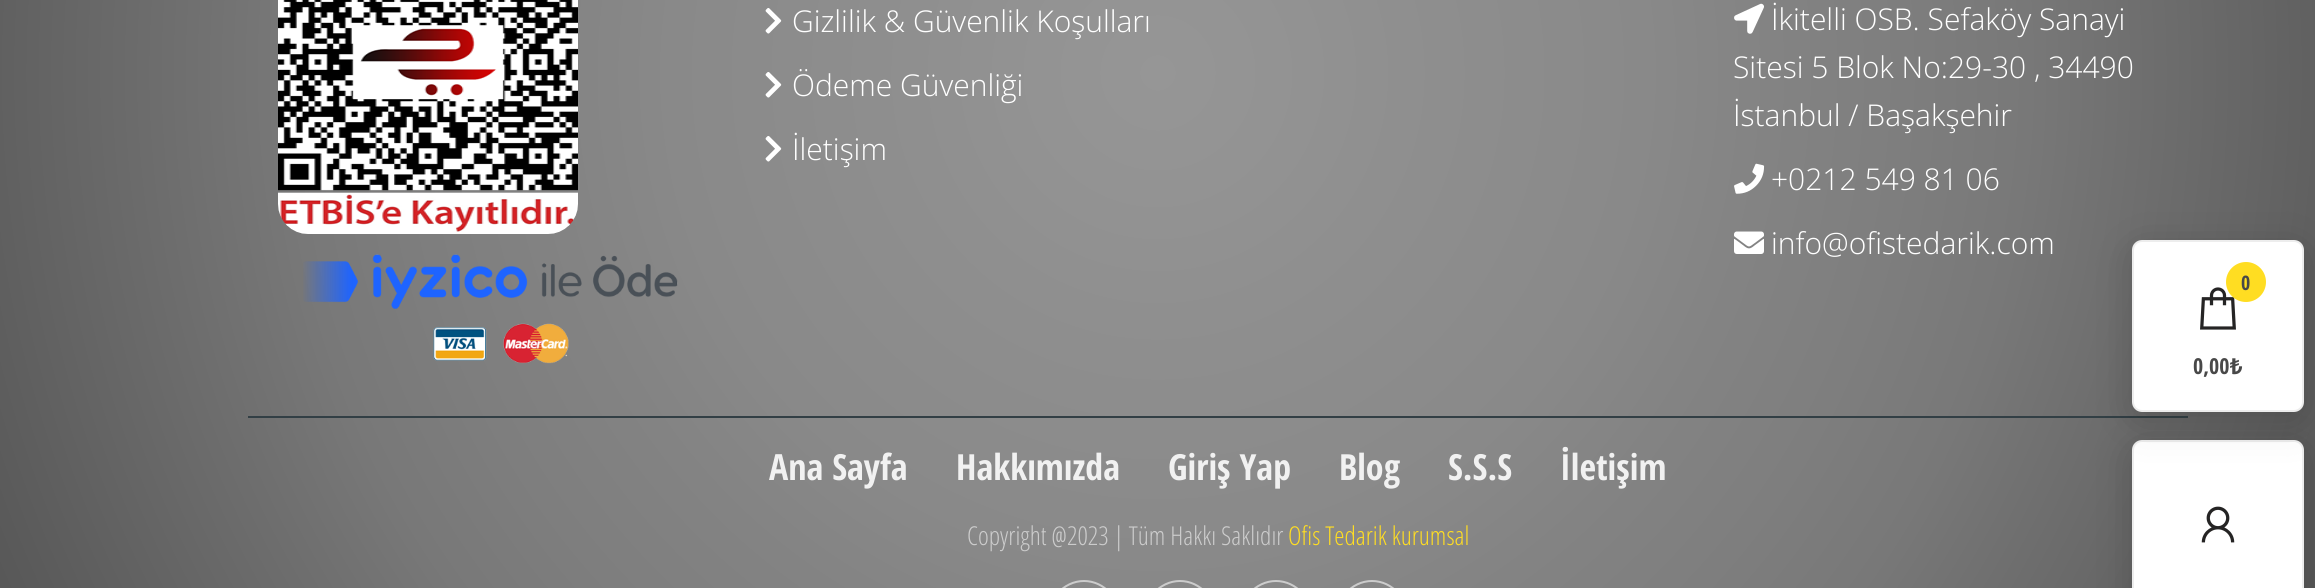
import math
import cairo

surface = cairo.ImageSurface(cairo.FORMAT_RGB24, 2315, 588)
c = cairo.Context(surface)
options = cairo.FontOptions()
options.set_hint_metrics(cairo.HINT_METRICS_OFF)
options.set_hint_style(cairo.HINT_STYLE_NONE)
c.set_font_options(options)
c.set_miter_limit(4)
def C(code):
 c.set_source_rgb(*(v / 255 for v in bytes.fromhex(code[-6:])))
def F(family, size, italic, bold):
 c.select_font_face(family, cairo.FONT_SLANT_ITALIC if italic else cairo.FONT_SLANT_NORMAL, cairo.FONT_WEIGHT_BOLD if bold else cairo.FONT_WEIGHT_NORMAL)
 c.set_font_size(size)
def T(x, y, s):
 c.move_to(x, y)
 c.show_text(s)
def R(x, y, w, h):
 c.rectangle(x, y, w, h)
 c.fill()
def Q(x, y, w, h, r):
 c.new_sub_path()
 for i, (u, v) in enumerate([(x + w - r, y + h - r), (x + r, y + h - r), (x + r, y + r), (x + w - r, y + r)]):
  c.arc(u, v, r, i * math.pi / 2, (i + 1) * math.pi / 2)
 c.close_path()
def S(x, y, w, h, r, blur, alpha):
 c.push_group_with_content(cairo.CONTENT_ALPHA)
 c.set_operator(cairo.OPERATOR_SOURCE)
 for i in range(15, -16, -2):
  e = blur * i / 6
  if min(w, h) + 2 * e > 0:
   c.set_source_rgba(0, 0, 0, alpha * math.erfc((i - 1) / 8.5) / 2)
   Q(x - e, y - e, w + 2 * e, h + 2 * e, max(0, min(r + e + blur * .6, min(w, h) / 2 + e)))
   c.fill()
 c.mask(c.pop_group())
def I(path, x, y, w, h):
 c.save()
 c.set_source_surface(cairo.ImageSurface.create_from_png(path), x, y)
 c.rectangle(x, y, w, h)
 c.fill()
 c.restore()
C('ffffff')
c.paint()
gradient = cairo.RadialGradient(1158,73,0,1158,73,1358)
gradient.add_color_stop_rgba(0,0.588,0.588,0.588,1)
gradient.add_color_stop_rgba(.09,0.576,0.576,0.576,1)
gradient.add_color_stop_rgba(.18,0.561,0.561,0.561,1)
gradient.add_color_stop_rgba(.27,0.549,0.549,0.549,1)
gradient.add_color_stop_rgba(.36,0.537,0.537,0.537,1)
gradient.add_color_stop_rgba(.45,0.514,0.514,0.514,1)
gradient.add_color_stop_rgba(.55,0.494,0.494,0.494,1)
gradient.add_color_stop_rgba(.64,0.471,0.471,0.471,1)
gradient.add_color_stop_rgba(.73,0.431,0.431,0.431,1)
gradient.add_color_stop_rgba(.82,0.392,0.392,0.392,1)
gradient.add_color_stop_rgba(.91,0.353,0.353,0.353,1)
gradient.add_color_stop_rgba(1,0.318,0.318,0.318,1)
c.set_source(gradient)
R(0,0,2315,588)
C('323f45')
R(248,416,1940,2)
I('1.png',278,0,300,234)
I('2.png',303,254,375,110)
I('3.png',765,8,17,26)
F('Open Sans Light',30,0,0)
C('ffffff')
T(792,32,'Gizlilik & Güvenlik Koşulları')
I('4.png',765,72,17,26)
T(792,96,'Ödeme Güvenliği')
I('5.png',765,136,17,26)
T(792,160,'İletişim')
I('6.png',1734,3,30,31)
T(1771,30,'İkitelli OSB. Sefaköy Sanayi')
T(1733,78,'Sitesi 5 Blok No:29-30 , 34490')
T(1733,126,'İstanbul / Başakşehir')
I('7.png',1734,163,31,31)
T(1771,190,'+0212 549 81 06')
I('8.png',1734,231,30,23)
T(1771,254,'info@ofistedarik.com')
F('Open Sans Condensed',36,0,1)
C('f1f1f1')
T(769,480,'Ana Sayfa')
T(956,480,'Hakkımızda')
T(1168,480,'Giriş Yap')
T(1339,480,'Blog')
T(1448,480,'S.S.S')
T(1560,480,'İletişim')
F('Open Sans Condensed Light',26,0,0)
C('cccccc')
T(967,545,'Copyright @2023 | Tüm Hakkı Saklıdır')
C('ffdd22')
T(1288,545,'Ofis Tedarik kurumsal')
c.new_path()
c.move_to(1084,581)
c.curve_to(1104.5,581,1121,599.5,1121,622)
c.curve_to(1121,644.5,1104.5,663,1084,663)
c.curve_to(1063.5,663,1047,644.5,1047,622)
c.curve_to(1047,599.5,1063.5,581,1084,581)
c.close_path()
C('cccccc')
c.stroke()
c.new_path()
c.move_to(1180,581)
c.curve_to(1200.5,581,1217,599.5,1217,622)
c.curve_to(1217,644.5,1200.5,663,1180,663)
c.curve_to(1159.5,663,1143,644.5,1143,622)
c.curve_to(1143,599.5,1159.5,581,1180,581)
c.close_path()
c.stroke()
c.new_path()
c.move_to(1276,581)
c.curve_to(1296.5,581,1313,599.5,1313,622)
c.curve_to(1313,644.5,1296.5,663,1276,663)
c.curve_to(1255.5,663,1239,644.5,1239,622)
c.curve_to(1239,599.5,1255.5,581,1276,581)
c.close_path()
c.stroke()
c.new_path()
c.move_to(1372,581)
c.curve_to(1392.5,581,1409,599.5,1409,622)
c.curve_to(1409,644.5,1392.5,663,1372,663)
c.curve_to(1351.5,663,1335,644.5,1335,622)
c.curve_to(1335,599.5,1351.5,581,1372,581)
c.close_path()
c.stroke()
C('000000')
S(2132,448,172,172,10,20,.17)
C('ffffff')
Q(2133,441,170,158,9)
c.fill_preserve()
C('ededed')
c.stroke()
C('000000')
S(2132,248,172,172,10,20,.17)
C('ffffff')
Q(2133,241,170,170,9)
c.fill_preserve()
C('ededed')
c.stroke()
I('9.png',2200,287,36,43)
C('ffdd22')
c.arc(2246,282,20,0,2 * math.pi)
c.fill()
F('Open Sans Condensed',20,0,1)
C('484848')
T(2241,290,'0')
F('Open Sans Condensed',22,0,1)
T(2193,374,'0,00')
F('Noto Sans',22,0,1)
T(2230,374,'₺')
I('10.png',2201,506,34,37)
surface.write_to_png('o.png')
